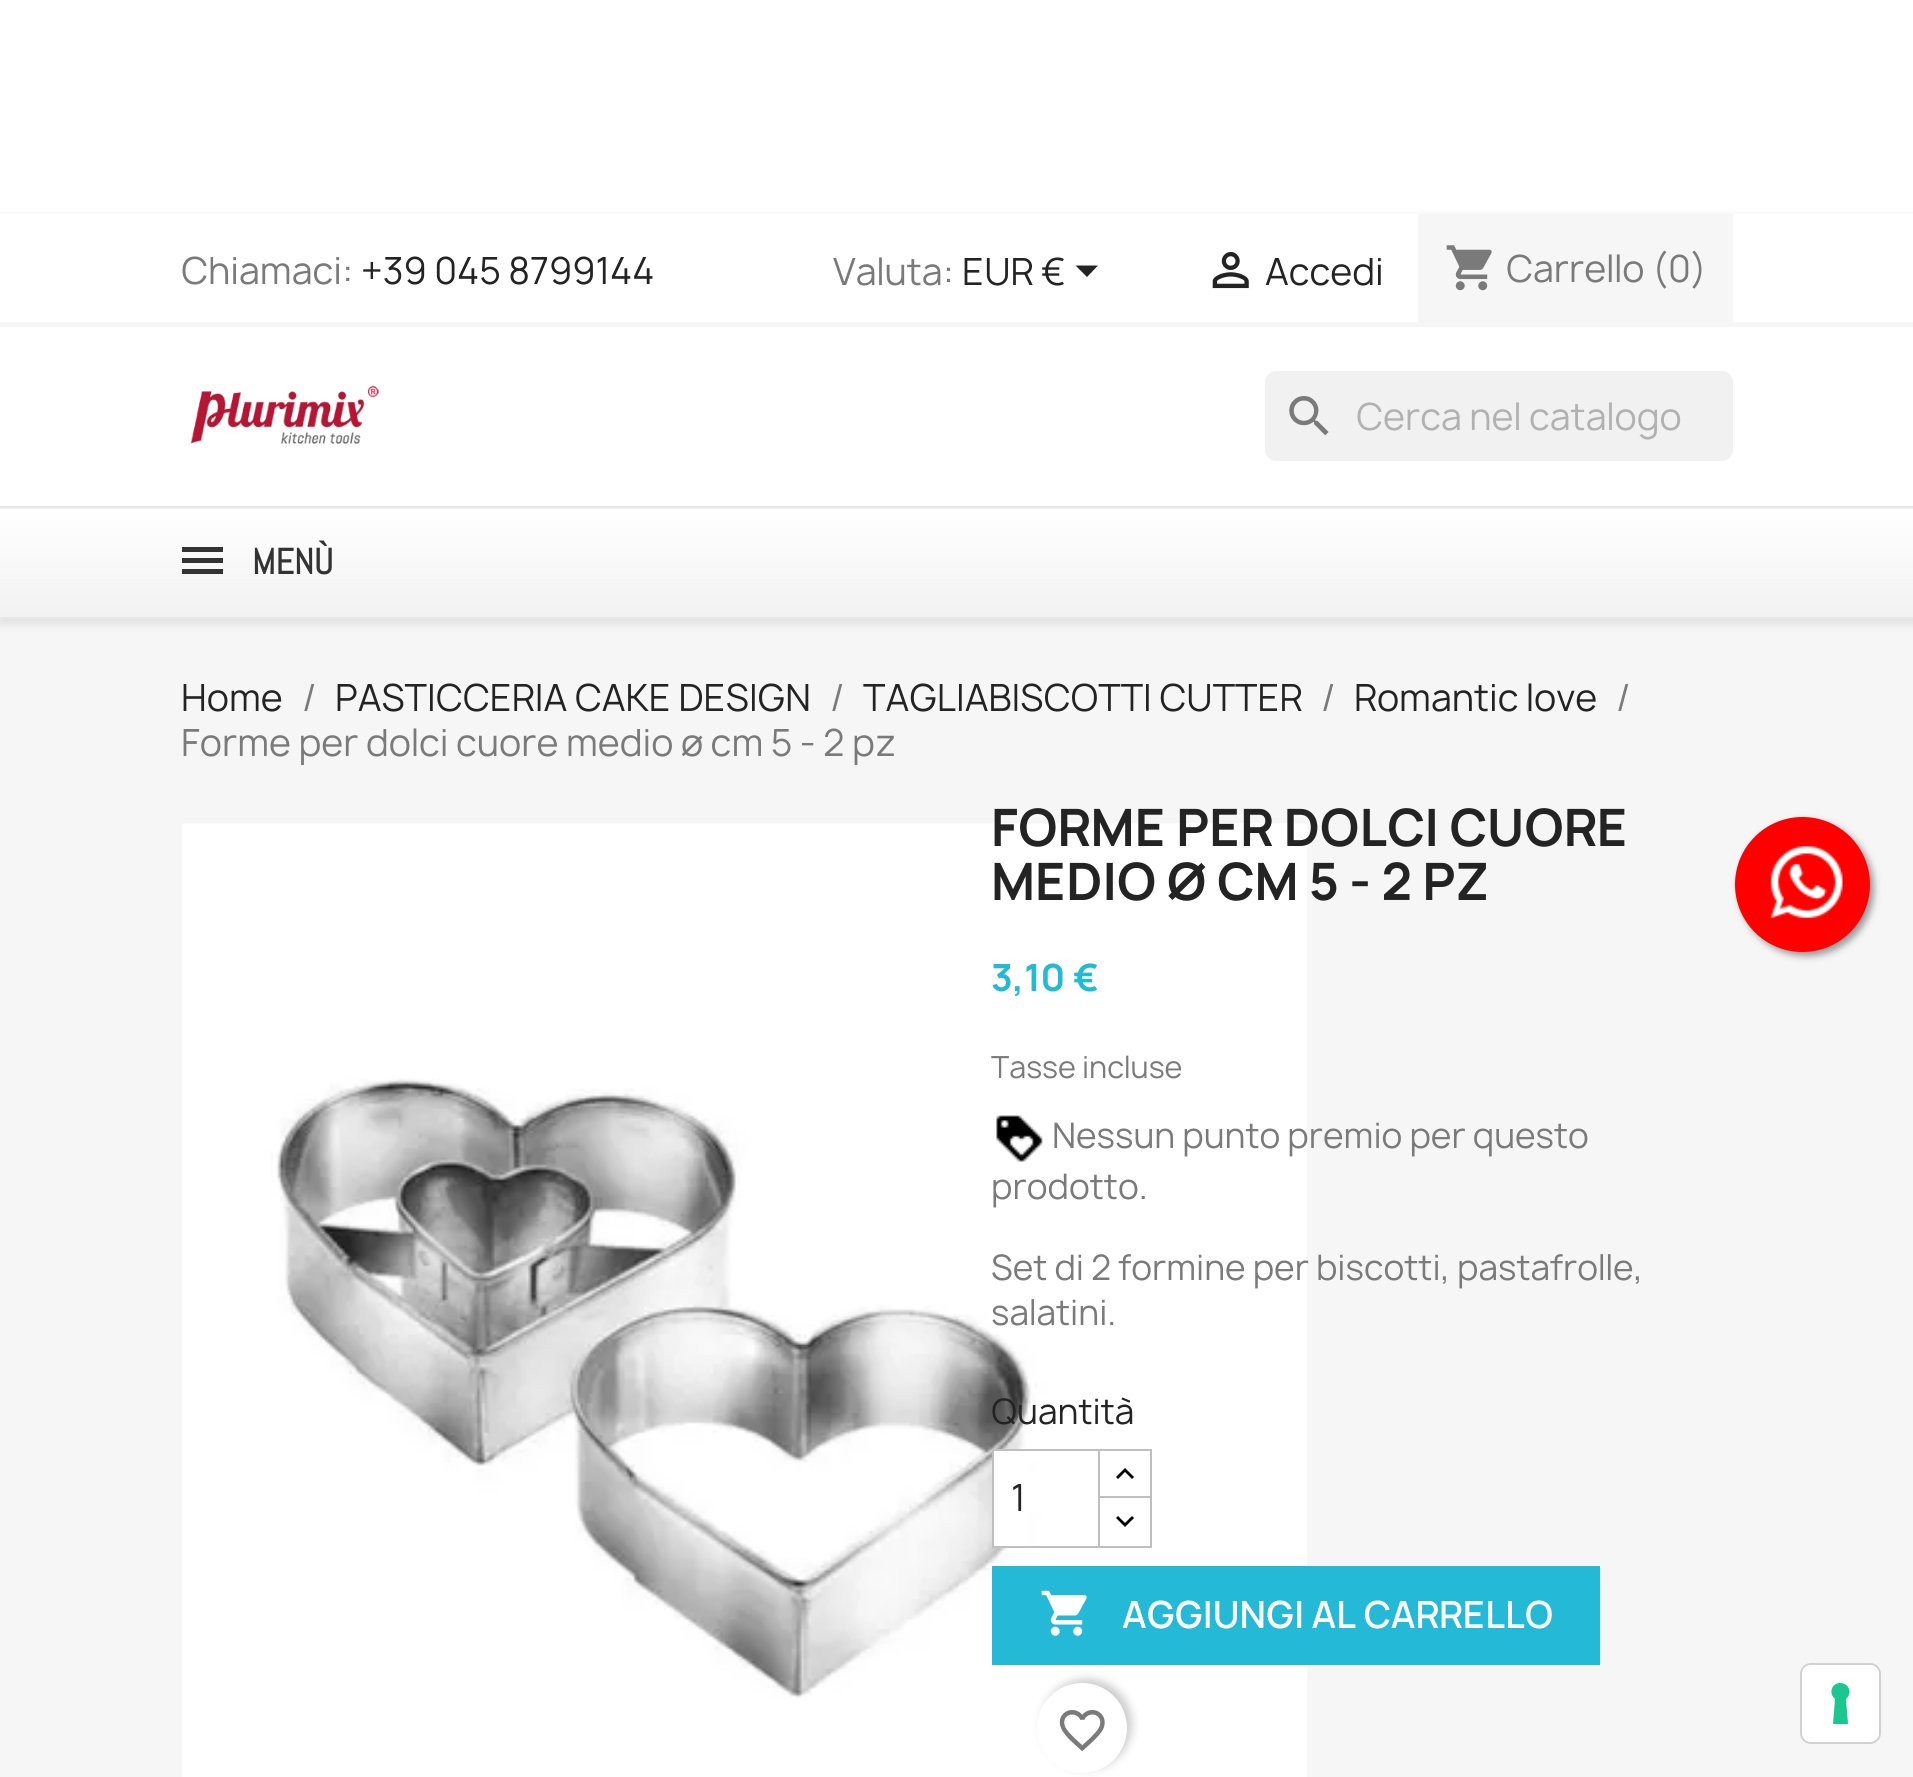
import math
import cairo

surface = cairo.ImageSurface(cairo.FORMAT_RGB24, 1913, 1777)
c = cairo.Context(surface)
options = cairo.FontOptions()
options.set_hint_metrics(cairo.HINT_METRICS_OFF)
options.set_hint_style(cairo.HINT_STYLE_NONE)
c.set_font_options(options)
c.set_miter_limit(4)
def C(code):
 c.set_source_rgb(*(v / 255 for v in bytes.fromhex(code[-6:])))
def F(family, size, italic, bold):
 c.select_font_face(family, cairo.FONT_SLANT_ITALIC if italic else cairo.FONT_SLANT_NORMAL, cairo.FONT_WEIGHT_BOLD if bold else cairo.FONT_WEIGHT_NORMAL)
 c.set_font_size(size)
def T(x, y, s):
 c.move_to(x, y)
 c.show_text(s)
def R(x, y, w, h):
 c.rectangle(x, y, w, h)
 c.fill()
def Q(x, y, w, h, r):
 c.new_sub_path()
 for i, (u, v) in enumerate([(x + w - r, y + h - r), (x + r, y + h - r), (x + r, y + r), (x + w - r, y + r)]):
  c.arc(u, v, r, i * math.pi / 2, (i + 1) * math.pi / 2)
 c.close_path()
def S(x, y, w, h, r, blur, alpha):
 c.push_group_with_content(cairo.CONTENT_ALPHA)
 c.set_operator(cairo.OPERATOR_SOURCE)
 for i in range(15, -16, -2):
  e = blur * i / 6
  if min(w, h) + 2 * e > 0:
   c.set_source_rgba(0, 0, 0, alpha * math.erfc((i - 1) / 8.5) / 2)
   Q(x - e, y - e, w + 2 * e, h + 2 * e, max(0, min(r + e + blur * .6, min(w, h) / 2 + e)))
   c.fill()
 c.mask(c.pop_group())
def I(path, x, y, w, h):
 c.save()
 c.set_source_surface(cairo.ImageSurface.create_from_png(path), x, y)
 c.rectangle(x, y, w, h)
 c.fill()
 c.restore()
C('ffffff')
c.paint()
C('f6f6f6')
R(0,619,1913,1158)
C('000000')
S(0,218,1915,405,0,5.5,.11)
C('ffffff')
R(0,214,1913,292)
C('f6f6f6')
R(0,322,1913,5)
F('Manrope',36,0,0)
C('7a7a7a')
T(181,284,'Chiamaci:')
C('232323')
T(361,284,'+39 045 8799144')
C('7a7a7a')
T(833,285,'Valuta:')
C('232323')
T(962,285,'EUR €')
c.new_path()
c.move_to(1075.5,265.5)
c.line_to(1098,265.5)
c.line_to(1087,277)
c.close_path()
c.fill()
I('1.png',1212,252,37,37)
T(1265,285,'Accedi')
C('f6f6f6')
R(1418,214,315,108)
I('2.png',1446,245,46,46)
C('7a7a7a')
T(1506,282,'Carrello (0)')
I('3.png',190,386,189,58)
C('f1f1f1')
Q(1265,371,468,90,11)
c.fill()
I('4.png',1289,396,40,40)
C('b1b1b1')
T(1356,430,'Cerca nel catalogo')
gradient = cairo.LinearGradient(957,400,957,509)
gradient.add_color_stop_rgba(0,1,1,1,1)
gradient.add_color_stop_rgba(1,0.949,0.949,0.949,1)
c.set_source(gradient)
R(0,508,1913,1)
gradient = cairo.LinearGradient(957,508,957,617)
gradient.add_color_stop_rgba(0,1,1,1,1)
gradient.add_color_stop_rgba(1,0.949,0.949,0.949,1)
c.set_source(gradient)
R(0,509,1913,108)
C('e7e7e7')
R(0,506,1913,2)
R(0,617,1913,2)
C('333333')
R(182,547,41,5)
R(182,558,41,5)
R(182,569,41,5)
F('Abel',36,0,1)
T(252,574,'MENÙ')
F('Manrope',36,0,0)
C('232323')
T(181,711,'Home')
C('7a7a7a')
T(302,711,'/')
C('232323')
T(335,711,'PASTICCERIA CAKE DESIGN')
C('7a7a7a')
T(830,711,'/')
C('232323')
T(863,711,'TAGLIABISCOTTI CUTTER')
C('7a7a7a')
T(1321,711,'/')
C('232323')
T(1354,711,'Romantic love')
C('7a7a7a')
T(1616,711,'/')
T(181,756,'Forme per dolci cuore medio ø cm 5 - 2 pz')
C('ffffff')
R(182,824,1125,953)
I('5.png',183,823,1124,876)
F('Manrope',49.5,0,1)
C('232323')
T(991,846,'FORME PER DOLCI CUORE')
T(991,900,'MEDIO Ø CM 5 - 2 PZ')
F('Manrope',36,0,1)
C('24b9d7')
T(991,991,'3,10 €')
F('Manrope',29.25,0,0)
C('7a7a7a')
T(991,1078,'Tasse incluse')
I('6.png',996,1115,47,47)
F('Manrope',33.75,0,0)
T(1052,1148,'Nessun punto premio per questo')
T(991,1199,'prodotto.')
T(991,1280,'Set di 2 formine per biscotti, pastafrolle,')
T(991,1325,'salatini.')
C('232323')
T(991,1424,'Quantità')
C('ffffff')
R(994,1451,34,95)
c.rectangle(1099,1450,52,50)
C('bfbfbf')
c.stroke()
C('ffffff')
R(1100,1499,50,2)
c.rectangle(1099,1497,52,50)
C('bfbfbf')
c.stroke()
c.rectangle(993,1450,106,97)
c.stroke()
F('Manrope',36,0,0)
C('232323')
T(1011,1511,'1')
C('000000')
c.new_path()
c.move_to(1125,1468)
c.line_to(1134,1477)
c.line_to(1132,1479)
c.line_to(1125,1472)
c.line_to(1118,1479)
c.line_to(1116,1477)
c.close_path()
c.fill()
c.new_path()
c.move_to(1132,1516)
c.line_to(1134,1518)
c.line_to(1125,1527)
c.line_to(1116,1518)
c.line_to(1118,1516)
c.line_to(1125,1523)
c.close_path()
c.fill()
C('24b9d7')
R(992,1566,608,99)
I('7.png',1041,1590,46,46)
F('Manrope SemiBold',36,0,0)
C('ffffff')
T(1122,1628,'AGGIUNGI AL CARRELLO')
C('000000')
S(1042,1679,90,90,45,4.5,.2)
C('ffffff')
c.arc(1082,1728,45,0,2 * math.pi)
c.fill()
I('8.png',1059,1710,46,42)
C('999999')
S(1739,821,135,135,67.5,3.5,1)
C('ff0000')
c.arc(1802.5,884.5,67.5,0,2 * math.pi)
c.fill()
I('9.png',1770,846,73,73)
Q(1801,1664,79,79,10)
C('d1d1d1')
c.stroke()
C('ffffff')
Q(1802,1665,77,77,9)
c.fill()
C('1cc691')
c.set_fill_rule(cairo.FILL_RULE_EVEN_ODD)
c.new_path()
c.move_to(1840,1683)
c.curve_to(1849,1683,1853,1693,1846,1699)
c.line_to(1848,1724)
c.line_to(1833,1724)
c.line_to(1835,1699)
c.curve_to(1828,1693,1832,1683,1840,1683)
c.close_path()
c.fill()
surface.write_to_png('o.png')
